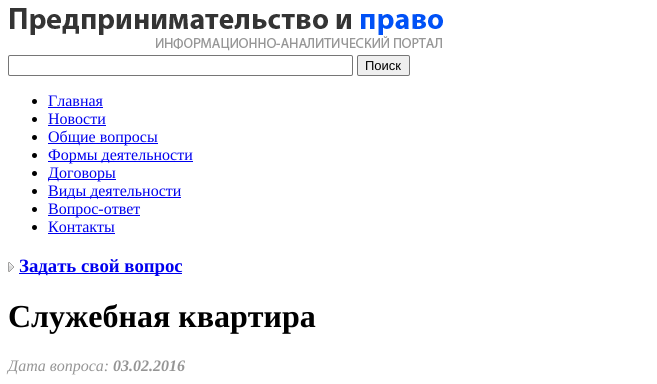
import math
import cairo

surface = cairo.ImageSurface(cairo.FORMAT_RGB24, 657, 384)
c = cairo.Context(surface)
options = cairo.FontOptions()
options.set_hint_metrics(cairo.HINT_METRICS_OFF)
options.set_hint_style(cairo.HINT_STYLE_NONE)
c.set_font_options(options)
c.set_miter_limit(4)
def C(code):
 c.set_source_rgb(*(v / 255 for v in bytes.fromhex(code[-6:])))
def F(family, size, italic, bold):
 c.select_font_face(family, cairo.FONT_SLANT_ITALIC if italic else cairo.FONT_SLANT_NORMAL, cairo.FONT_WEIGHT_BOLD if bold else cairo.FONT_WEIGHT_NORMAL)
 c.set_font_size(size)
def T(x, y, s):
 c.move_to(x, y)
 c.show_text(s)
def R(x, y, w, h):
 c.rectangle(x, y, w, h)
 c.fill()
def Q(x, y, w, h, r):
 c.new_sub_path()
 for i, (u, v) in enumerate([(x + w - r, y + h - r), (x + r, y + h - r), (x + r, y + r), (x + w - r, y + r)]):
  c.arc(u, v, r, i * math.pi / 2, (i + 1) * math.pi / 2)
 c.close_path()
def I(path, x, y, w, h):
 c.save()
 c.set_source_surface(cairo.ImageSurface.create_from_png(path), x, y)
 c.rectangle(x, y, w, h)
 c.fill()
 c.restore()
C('ffffff')
c.paint()
I('1.png',10,8,433,43)
Q(8.5,55.5,344,20,1.5)
C('767676')
c.set_line_width(1)
c.stroke()
C('efefef')
Q(357.5,55.5,52,20,1.5)
c.fill_preserve()
C('767676')
c.stroke()
F('Liberation Sans',13,0,0)
C('000000')
T(365,70,'Поиск')
c.new_path()
c.arc(34.5,101.5,2.5,0,2 * math.pi)
c.fill()
F('Liberation Serif',16,0,0)
C('0000ee')
T(48,106,'Главная')
R(48,107,55,1)
C('000000')
c.new_path()
c.arc(34.5,119.5,2.5,0,2 * math.pi)
c.fill()
C('0000ee')
T(48,124,'Новости')
R(48,125,58,1)
C('000000')
c.new_path()
c.arc(34.5,137.5,2.5,0,2 * math.pi)
c.fill()
C('0000ee')
R(48,143,110,1)
T(48,142,'Общие вопросы')
C('000000')
c.new_path()
c.arc(34.5,155.5,2.5,0,2 * math.pi)
c.fill()
C('0000ee')
R(48,161,145,1)
T(48,160,'Формы деятельности')
C('000000')
c.new_path()
c.arc(34.5,173.5,2.5,0,2 * math.pi)
c.fill()
C('0000ee')
R(48,179,68,1)
T(48,178,'Договоры')
C('000000')
c.new_path()
c.arc(34.5,191.5,2.5,0,2 * math.pi)
c.fill()
C('0000ee')
R(48,197,133,1)
T(48,196,'Виды деятельности')
C('000000')
c.new_path()
c.arc(34.5,209.5,2.5,0,2 * math.pi)
c.fill()
C('0000ee')
R(48,215,92,1)
T(48,214,'Вопрос-ответ')
C('000000')
c.new_path()
c.arc(34.5,227.5,2.5,0,2 * math.pi)
c.fill()
C('0000ee')
T(48,232,'Контакты')
R(48,233,67,1)
I('2.png',8,262,6,10)
R(19,273,163,1)
F('Liberation Serif',18.75,0,1)
T(19,272,'Задать свой вопрос')
F('Liberation Serif',32,0,1)
C('000000')
T(8,327,'Служебная квартира')
F('Liberation Serif',16,1,0)
C('959595')
T(8,371,'Дата вопроса:')
F('Liberation Serif',16,1,1)
T(113,371,'03.02.2016')
surface.write_to_png('o.png')
